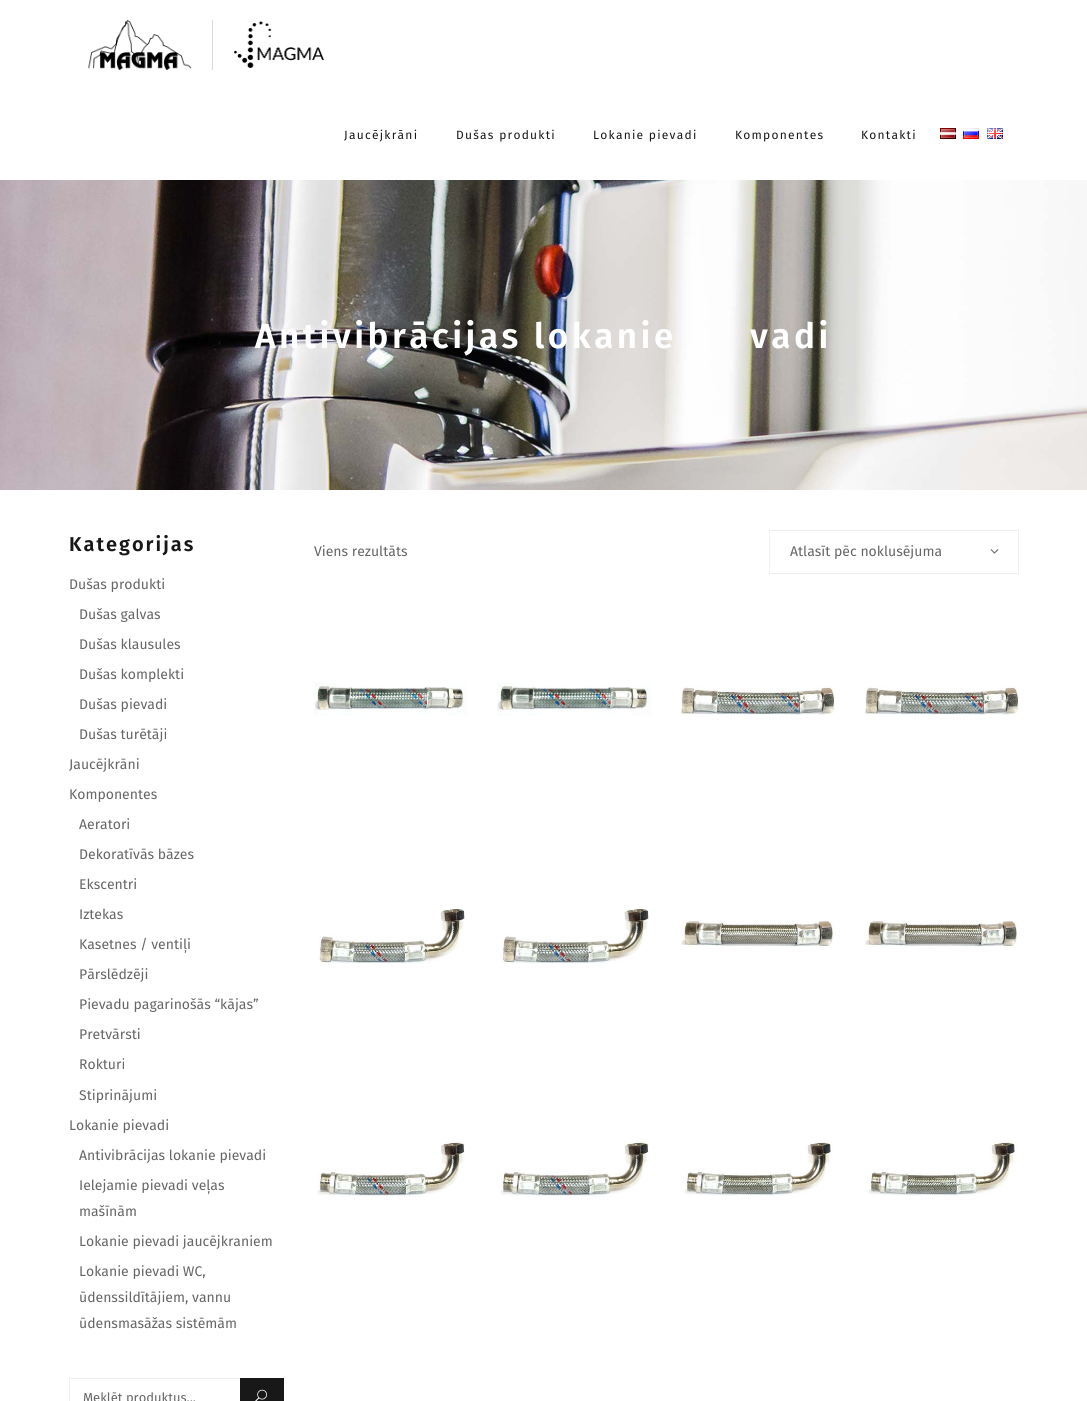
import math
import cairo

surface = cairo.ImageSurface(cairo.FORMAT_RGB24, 1087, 1401)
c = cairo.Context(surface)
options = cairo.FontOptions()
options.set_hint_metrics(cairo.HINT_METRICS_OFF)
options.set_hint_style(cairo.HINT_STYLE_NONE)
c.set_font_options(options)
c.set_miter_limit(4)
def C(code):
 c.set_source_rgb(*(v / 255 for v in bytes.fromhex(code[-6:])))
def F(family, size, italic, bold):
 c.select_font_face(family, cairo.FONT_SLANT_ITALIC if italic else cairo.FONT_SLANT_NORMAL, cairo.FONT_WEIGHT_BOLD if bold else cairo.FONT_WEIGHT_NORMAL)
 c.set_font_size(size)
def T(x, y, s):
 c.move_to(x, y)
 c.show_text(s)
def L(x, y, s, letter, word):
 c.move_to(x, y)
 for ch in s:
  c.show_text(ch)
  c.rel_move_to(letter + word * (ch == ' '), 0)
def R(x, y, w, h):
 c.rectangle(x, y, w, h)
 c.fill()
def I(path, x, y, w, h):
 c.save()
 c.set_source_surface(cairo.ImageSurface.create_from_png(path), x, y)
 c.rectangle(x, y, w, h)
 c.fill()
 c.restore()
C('ffffff')
c.paint()
C('dadada')
R(212,20,1,50)
I('1.png',88,20,104,50)
I('2.png',234,21,91,47)
F('Fira Sans',12,0,0)
C('181818')
L(344,139,'Jaucējkrāni',1.25,0)
L(456,139,'Dušas produkti',1.25,0)
L(593,139,'Lokanie pievadi',1.25,0)
L(735,139,'Komponentes',1.25,0)
L(861,139,'Kontakti',1.25,0)
I('3.png',940,128,16,11)
I('4.png',963,128,16,11)
I('5.png',987,128,16,11)
I('6.png',0,180,1087,310)
F('Fira Sans SemiBold',35,0,0)
C('ffffff')
L(255,348,'Antivibrācijas lokanie',3.5,0)
L(750,348,'vadi',3.5,0)
F('Fira Sans SemiBold',20,0,0)
C('181818')
L(69,551,'Kategorijas',2,0)
F('Fira Sans',14,0,0)
C('666666')
T(69,589,'Dušas produkti')
T(79,619,'Dušas galvas')
T(79,649,'Dušas klausules')
T(79,679,'Dušas komplekti')
T(79,709,'Dušas pievadi')
T(79,739,'Dušas turētāji')
T(69,769,'Jaucējkrāni')
T(69,799,'Komponentes')
T(79,829,'Aeratori')
T(79,859,'Dekoratīvās bāzes')
T(79,889,'Ekscentri')
T(79,919,'Iztekas')
T(79,949,'Kasetnes / ventiļi')
T(79,979,'Pārslēdzēji')
T(79,1009,'Pievadu pagarinošās “kājas”')
T(79,1039,'Pretvārsti')
T(79,1069,'Rokturi')
T(79,1100,'Stiprinājumi')
T(69,1130,'Lokanie pievadi')
T(79,1160,'Antivibrācijas lokanie pievadi')
T(79,1190,'Ielejamie pievadi veļas')
T(79,1216,'mašīnām')
T(79,1246,'Lokanie pievadi jaucējkraniem')
T(79,1276,'Lokanie pievadi WC,')
T(79,1302,'ūdenssildītājiem, vannu')
T(79,1328,'ūdensmasāžas sistēmām')
C('efefef')
R(69,1378,171,1)
R(69,1378,1,23)
F('Fira Sans',13,0,0)
C('666666')
T(83,1402,'Meklēt produktus...')
C('181818')
R(240,1378,44,23)
I('7.png',255,1389,12,12)
F('Fira Sans',14,0,0)
C('666666')
T(314,556,'Viens rezultāts')
c.rectangle(769.5,530.5,249,43)
C('efefef')
c.set_line_width(1)
c.stroke()
C('666666')
T(790,556,'Atlasīt pēc noklusējuma')
I('8.png',990,549,9,5)
I('9.png',314,681,153,35)
I('10.png',497,681,154,35)
I('11.png',681,686,154,33)
I('12.png',865,686,154,33)
I('13.png',318,908,147,56)
I('14.png',501,908,148,56)
I('15.png',681,921,154,27)
I('16.png',865,921,154,27)
I('17.png',317,1140,149,57)
I('18.png',500,1140,150,57)
I('19.png',684,1140,149,57)
I('20.png',868,1140,149,57)
surface.write_to_png('o.png')
